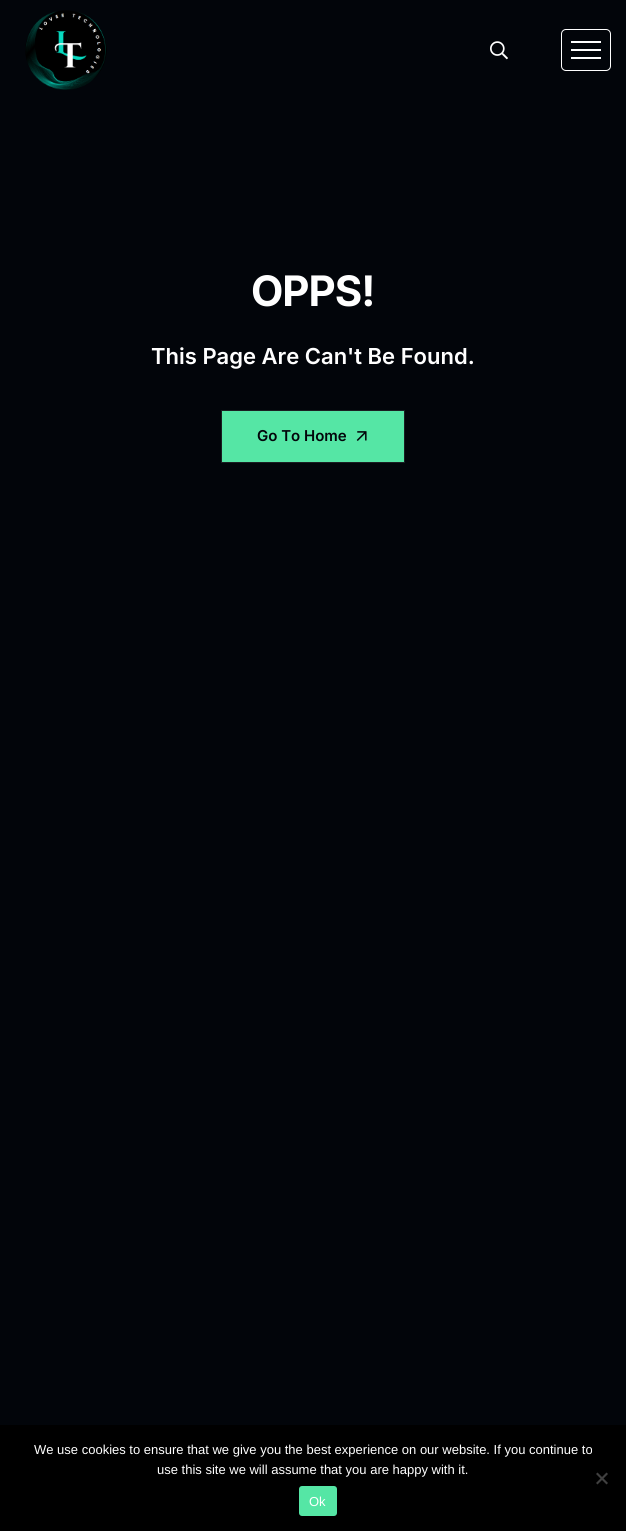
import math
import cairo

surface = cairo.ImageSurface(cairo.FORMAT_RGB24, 626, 1531)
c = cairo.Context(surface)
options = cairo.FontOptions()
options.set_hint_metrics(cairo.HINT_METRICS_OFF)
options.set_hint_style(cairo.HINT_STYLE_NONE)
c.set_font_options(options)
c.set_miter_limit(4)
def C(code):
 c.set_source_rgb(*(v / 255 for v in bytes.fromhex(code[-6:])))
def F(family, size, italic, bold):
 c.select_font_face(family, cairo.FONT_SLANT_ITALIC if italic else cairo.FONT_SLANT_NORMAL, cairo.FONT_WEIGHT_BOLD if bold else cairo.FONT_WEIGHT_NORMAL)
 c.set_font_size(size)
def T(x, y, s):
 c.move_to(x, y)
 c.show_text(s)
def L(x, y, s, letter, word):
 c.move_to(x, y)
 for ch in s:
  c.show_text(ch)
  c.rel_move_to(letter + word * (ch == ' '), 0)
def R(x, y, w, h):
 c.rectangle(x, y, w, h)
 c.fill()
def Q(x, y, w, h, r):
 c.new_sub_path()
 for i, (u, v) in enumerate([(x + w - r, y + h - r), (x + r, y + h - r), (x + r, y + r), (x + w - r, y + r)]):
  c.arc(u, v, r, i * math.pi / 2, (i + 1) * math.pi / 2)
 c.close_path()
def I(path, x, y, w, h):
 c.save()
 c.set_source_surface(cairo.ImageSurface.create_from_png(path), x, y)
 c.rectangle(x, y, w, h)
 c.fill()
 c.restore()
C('02050a')
c.paint()
I('1.png',25,10,82,80)
I('2.png',490,41,18,19)
Q(561.5,29.5,49,41,4.5)
C('ffffff')
c.set_line_width(1)
c.stroke()
R(571,41,30,2)
R(571,49,30,2)
R(571,57,30,2)
F('Inter',42,0,1)
L(251,306,'OPPS!',-1,0)
F('Inter SemiBold',22,0,0)
T(151,364,'This Page Are Can\'t Be Found.')
C('55e6a5')
c.rectangle(221.5,410.5,183,52)
c.fill_preserve()
C('1b1e22')
c.stroke()
F('Inter SemiBold',15,0,0)
C('02050a')
T(257,441,'Go To Home')
I('3.png',356,431,11,10)
C('000000')
R(0,1425,626,106)
F('Liberation Sans',13,0,0)
C('ffffff')
T(34,1454,'We use cookies to ensure that we give you the best experience on our website. If you continue to')
T(157,1474,'use this site we will assume that you are happy with it.')
C('404040')
c.new_path()
c.move_to(606.5,1472.5)
c.line_to(608,1474)
c.line_to(597.5,1484.5)
c.line_to(596,1483)
c.close_path()
c.fill()
c.new_path()
c.move_to(596,1474)
c.line_to(597.5,1472.5)
c.line_to(608,1483)
c.line_to(606.5,1484.5)
c.close_path()
c.fill()
C('55e6a5')
Q(299,1486,38,30,3)
c.fill()
C('ffffff')
T(309,1506,'Ok')
surface.write_to_png('o.png')
